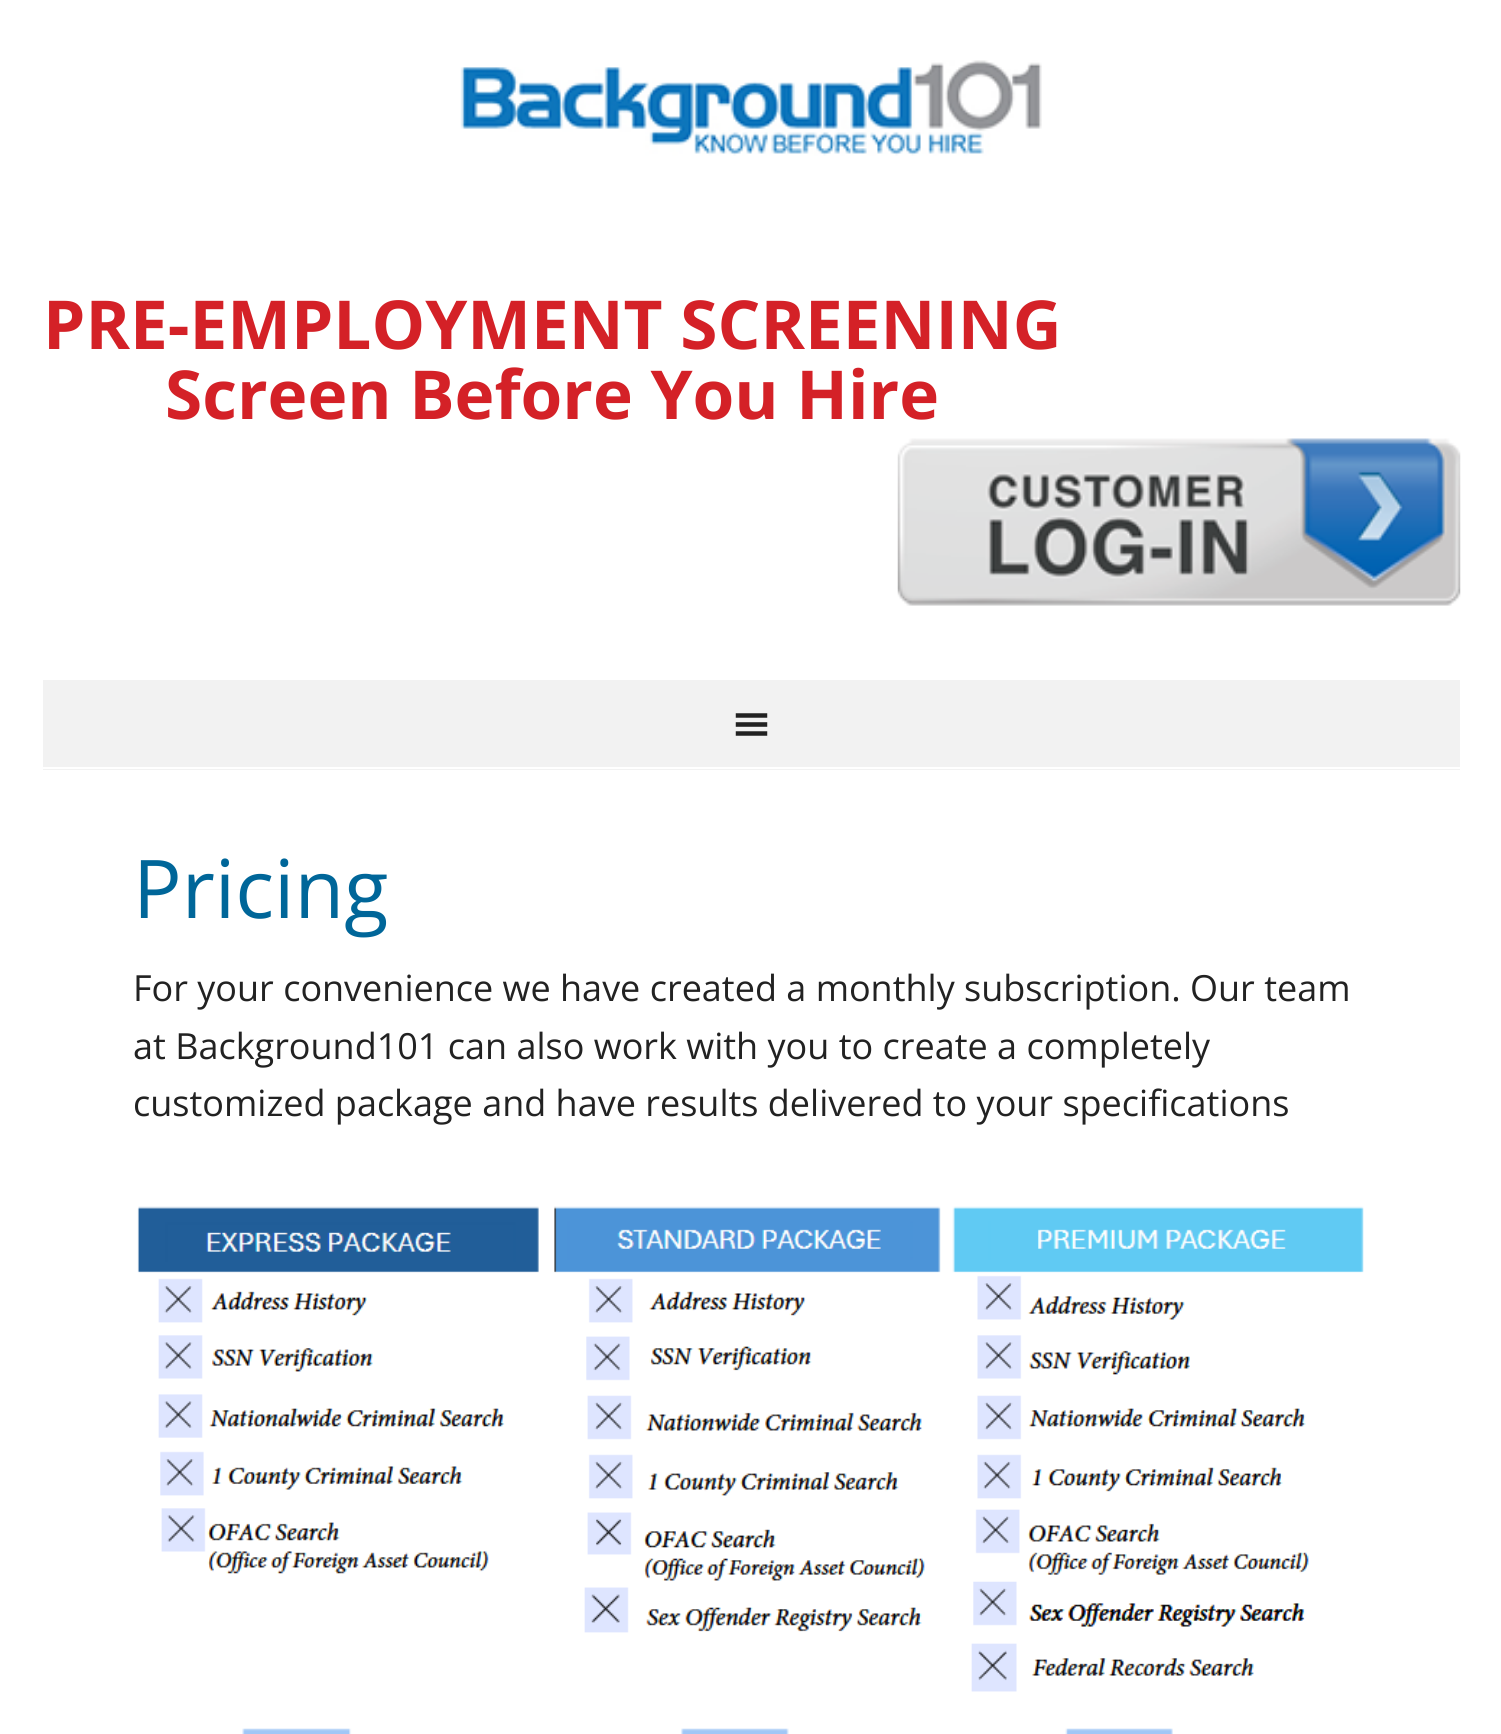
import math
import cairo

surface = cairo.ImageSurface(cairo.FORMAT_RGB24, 1501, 1734)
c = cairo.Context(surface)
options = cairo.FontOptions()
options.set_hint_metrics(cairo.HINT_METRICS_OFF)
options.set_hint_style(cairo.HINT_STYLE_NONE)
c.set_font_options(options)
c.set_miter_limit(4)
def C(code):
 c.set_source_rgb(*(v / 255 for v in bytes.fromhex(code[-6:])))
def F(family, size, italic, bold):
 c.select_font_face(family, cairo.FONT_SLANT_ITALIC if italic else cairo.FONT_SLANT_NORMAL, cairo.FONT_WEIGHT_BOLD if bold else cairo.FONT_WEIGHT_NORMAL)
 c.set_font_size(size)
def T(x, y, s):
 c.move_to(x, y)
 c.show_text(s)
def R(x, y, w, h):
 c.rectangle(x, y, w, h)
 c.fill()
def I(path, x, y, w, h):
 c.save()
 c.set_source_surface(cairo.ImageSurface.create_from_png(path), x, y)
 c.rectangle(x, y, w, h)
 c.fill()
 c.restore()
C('ffffff')
c.paint()
I('1.png',460,60,582,96)
F('Open Sans',67.5,0,1)
C('d42127')
T(43,349,'PRE-EMPLOYMENT SCREENING')
T(165,419,'Screen Before You Hire')
I('2.png',897,438,564,168)
C('f2f2f2')
R(43,680,1417,90)
I('3.png',735,713,33,23)
c.rectangle(42,768,1420,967)
C('ffffff')
c.stroke()
F('Open Sans',81,0,0)
C('006699')
T(133,918,'Pricing')
F('Open Sans',36,0,0)
C('222222')
T(133,1001,'For your convenience we have created a monthly subscription. Our team')
T(133,1059,'at Background101 can also work with you to create a completely')
T(133,1116,'customized package and have results delivered to your specifications')
I('4.png',137,1206,1227,528)
surface.write_to_png('o.png')
